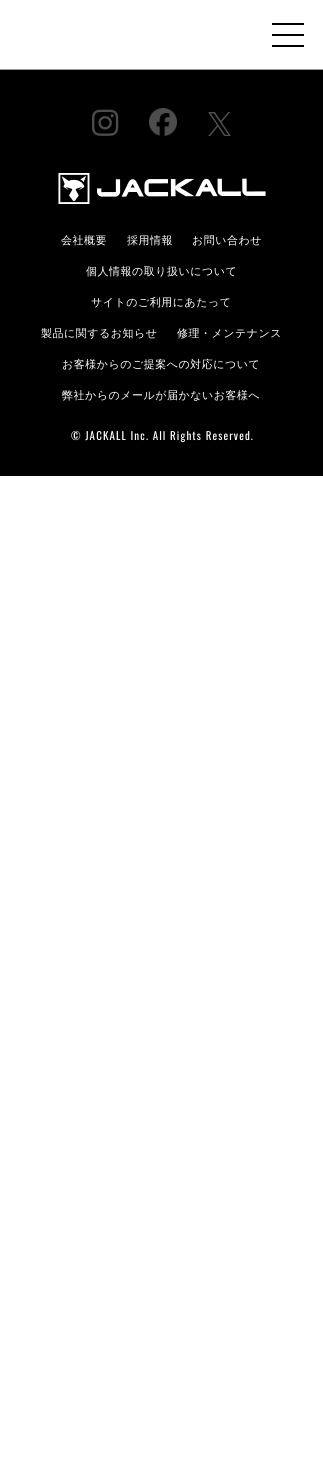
import math
import cairo

surface = cairo.ImageSurface(cairo.FORMAT_RGB24, 323, 1483)
c = cairo.Context(surface)
options = cairo.FontOptions()
options.set_hint_metrics(cairo.HINT_METRICS_OFF)
options.set_hint_style(cairo.HINT_STYLE_NONE)
c.set_font_options(options)
c.set_miter_limit(4)
def C(code):
 c.set_source_rgb(*(v / 255 for v in bytes.fromhex(code[-6:])))
def F(family, size, italic, bold):
 c.select_font_face(family, cairo.FONT_SLANT_ITALIC if italic else cairo.FONT_SLANT_NORMAL, cairo.FONT_WEIGHT_BOLD if bold else cairo.FONT_WEIGHT_NORMAL)
 c.set_font_size(size)
def L(x, y, s, letter, word):
 c.move_to(x, y)
 for ch in s:
  c.show_text(ch)
  c.rel_move_to(letter + word * (ch == ' '), 0)
def R(x, y, w, h):
 c.rectangle(x, y, w, h)
 c.fill()
def I(path, x, y, w, h):
 c.save()
 c.set_source_surface(cairo.ImageSurface.create_from_png(path), x, y)
 c.rectangle(x, y, w, h)
 c.fill()
 c.restore()
C('ffffff')
c.paint()
C('999999')
R(0,69,323,1)
C('000000')
R(272,23,32,2)
R(272,34,32,2)
R(272,45,32,2)
R(0,70,323,406)
I('1.png',92,109,27,27)
I('2.png',149,108,28,28)
I('3.png',208,112,23,24)
I('4.png',58,173,208,31)
F('WenQuanYi Zen Hei Medium',11,0,0)
C('ffffff')
L(61,244,'会社概要',.5,0)
L(127,244,'採用情報',.5,0)
L(192,244,'お問い合わせ',.5,0)
L(86,275,'個人情報の取り扱いについて',.5,0)
L(91,306,'サイトのご利用にあたって',.5,0)
L(41,337,'製品に関するお知らせ',.5,0)
L(177,337,'修理・メンテナンス',.5,0)
L(62,368,'お客様からのご提案への対応について',.5,0)
L(62,399,'弊社からのメールが届かないお客様へ',.5,0)
F('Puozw',11,0,0)
L(71,440,'© JACKALL Inc. All Rights Reserved.',1.1,0)
surface.write_to_png('o.png')
